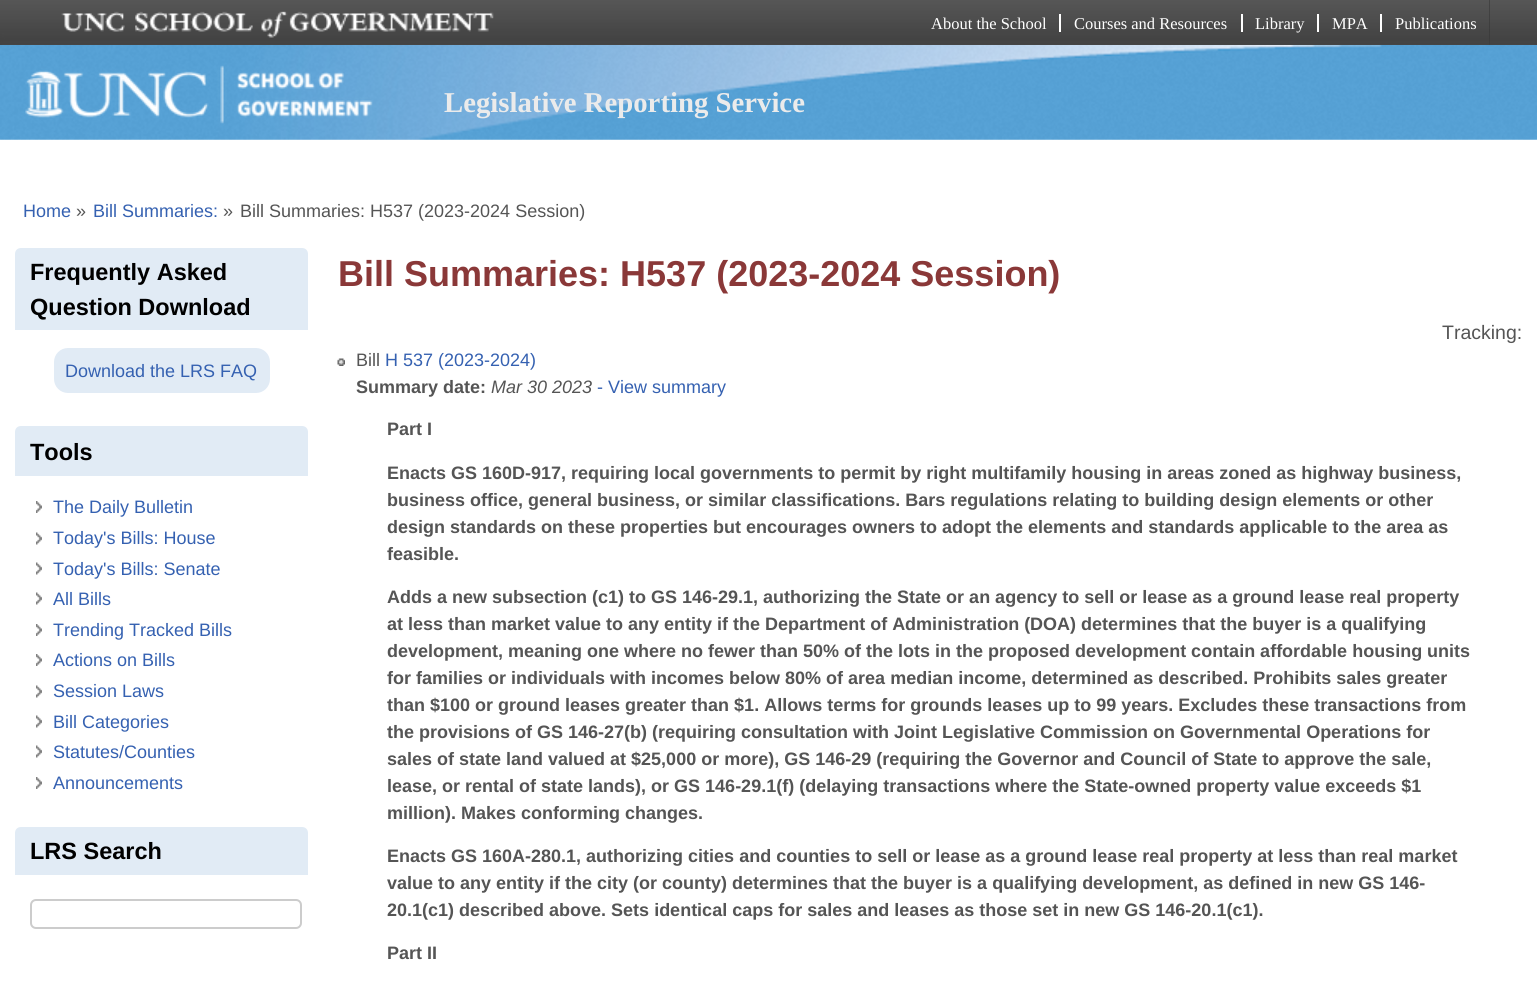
import math
import cairo

surface = cairo.ImageSurface(cairo.FORMAT_RGB24, 1537, 988)
c = cairo.Context(surface)
options = cairo.FontOptions()
options.set_hint_metrics(cairo.HINT_METRICS_OFF)
options.set_hint_style(cairo.HINT_STYLE_NONE)
c.set_font_options(options)
c.set_miter_limit(4)
def C(code):
 c.set_source_rgb(*(v / 255 for v in bytes.fromhex(code[-6:])))
def F(family, size, italic, bold):
 c.select_font_face(family, cairo.FONT_SLANT_ITALIC if italic else cairo.FONT_SLANT_NORMAL, cairo.FONT_WEIGHT_BOLD if bold else cairo.FONT_WEIGHT_NORMAL)
 c.set_font_size(size)
def T(x, y, s):
 c.move_to(x, y)
 c.show_text(s)
def R(x, y, w, h):
 c.rectangle(x, y, w, h)
 c.fill()
def Q(x, y, w, h, r):
 c.new_sub_path()
 for i, (u, v) in enumerate([(x + w - r, y + h - r), (x + r, y + h - r), (x + r, y + r), (x + w - r, y + r)]):
  c.arc(u, v, r, i * math.pi / 2, (i + 1) * math.pi / 2)
 c.close_path()
def S(x, y, w, h, r, blur, alpha):
 c.push_group_with_content(cairo.CONTENT_ALPHA)
 c.set_operator(cairo.OPERATOR_SOURCE)
 for i in range(15, -16, -2):
  e = blur * i / 6
  if min(w, h) + 2 * e > 0:
   c.set_source_rgba(0, 0, 0, alpha * math.erfc((i - 1) / 8.5) / 2)
   Q(x - e, y - e, w + 2 * e, h + 2 * e, max(0, min(r + e + blur * .6, min(w, h) / 2 + e)))
   c.fill()
 c.mask(c.pop_group())
def I(path, x, y, w, h):
 c.save()
 c.set_source_surface(cairo.ImageSurface.create_from_png(path), x, y)
 c.rectangle(x, y, w, h)
 c.fill()
 c.restore()
C('ffffff')
c.paint()
I('1.png',0,0,1537,45)
C('333333')
R(1489,0,1,45)
I('2.png',50,0,1440,45)
C('4c4c4c')
S(0,45,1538,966,0,7.5,.7)
I('3.png',61,11,433,27)
F('Liberation Serif',16.5,0,0)
C('ffffff')
T(931,29,'About the School')
R(1059,14,2,18)
T(1074,29,'Courses and Resources')
R(1241,14,2,18)
T(1255,29,'Library')
R(1317,14,2,18)
T(1332,29,'MPA')
R(1380,14,2,18)
T(1395,29,'Publications')
R(0,139,1537,849)
I('4.png',0,45,1537,95)
I('5.png',0,139,1537,1)
I('6.png',25,65,348,59)
F('Liberation Serif',28.75,0,1)
C('ebebeb')
T(444,112,'Legislative Reporting Service')
F('Liberation Sans',18,0,0)
C('3561b1')
T(23,217,'Home')
C('555555')
T(76,217,'»')
C('3561b1')
T(93,217,'Bill Summaries:')
C('555555')
T(223,217,'»')
T(240,217,'Bill Summaries: H537 (2023-2024 Session)')
C('e1ebf5')
c.new_path()
c.move_to(21,248)
c.line_to(302,248)
c.curve_to(305.5,248,308,250.5,308,254)
c.line_to(308,330)
c.line_to(15,330)
c.line_to(15,254)
c.curve_to(15,250.5,17.5,248,21,248)
c.close_path()
c.fill()
F('Liberation Sans',23.5,0,1)
C('000000')
T(30,280,'Frequently Asked')
T(30,315,'Question Download')
C('e1ebf5')
Q(54,348,216,45,14)
c.fill()
F('Liberation Sans',18,0,0)
C('3561b1')
T(65,377,'Download the LRS FAQ')
C('e1ebf5')
c.new_path()
c.move_to(21,426)
c.line_to(302,426)
c.curve_to(305.5,426,308,428.5,308,432)
c.line_to(308,476)
c.line_to(15,476)
c.line_to(15,432)
c.curve_to(15,428.5,17.5,426,21,426)
c.close_path()
c.fill()
F('Liberation Sans',23.5,0,1)
C('000000')
T(30,460,'Tools')
I('7.png',36,501,6,12)
F('Liberation Sans',18,0,0)
C('3561b1')
T(53,513,'The Daily Bulletin')
I('8.png',36,532,6,13)
T(53,544,'Today\'s Bills: House')
I('8.png',36,562,6,13)
T(53,575,'Today\'s Bills: Senate')
I('8.png',36,592,6,13)
T(53,605,'All Bills')
I('7.png',36,624,6,12)
T(53,636,'Trending Tracked Bills')
I('7.png',36,654,6,12)
T(53,666,'Actions on Bills')
I('8.png',36,685,6,13)
T(53,697,'Session Laws')
I('8.png',36,715,6,13)
T(53,728,'Bill Categories')
I('8.png',36,745,6,13)
T(53,758,'Statutes/Counties')
I('7.png',36,777,6,12)
T(53,789,'Announcements')
C('e1ebf5')
c.new_path()
c.move_to(21,827)
c.line_to(302,827)
c.curve_to(305.5,827,308,829.5,308,833)
c.line_to(308,875)
c.line_to(15,875)
c.line_to(15,833)
c.curve_to(15,829.5,17.5,827,21,827)
c.close_path()
c.fill()
F('Liberation Sans',23.5,0,1)
C('000000')
T(30,859,'LRS Search')
Q(31,900,270,28,5)
C('cccccc')
c.stroke()
F('Liberation Sans',36,0,1)
C('8a3838')
T(338,286,'Bill Summaries: H537 (2023-2024 Session)')
F('Liberation Sans',19.5,0,0)
C('555555')
T(1442,339,'Tracking:')
I('9.png',337,358,8,8)
F('Liberation Sans',18,0,0)
T(356,366,'Bill')
C('3561b1')
T(385,366,'H 537 (2023-2024)')
F('Liberation Sans',18,0,1)
C('555555')
T(356,393,'Summary date:')
F('Liberation Sans',18,1,0)
T(491,393,'Mar 30 2023')
F('Liberation Sans',18,0,0)
C('3561b1')
T(597,393,'- View summary')
F('Liberation Sans',18,0,1)
C('555555')
T(387,435,'Part I')
T(387,479,'Enacts GS 160D-917, requiring local governments to permit by right multifamily housing in areas zoned as highway business,')
T(387,506,'business office, general business, or similar classifications. Bars regulations relating to building design elements or other')
T(387,533,'design standards on these properties but encourages owners to adopt the elements and standards applicable to the area as')
T(387,560,'feasible.')
T(387,603,'Adds a new subsection (c1) to GS 146-29.1, authorizing the State or an agency to sell or lease as a ground lease real property')
T(387,630,'at less than market value to any entity if the Department of Administration (DOA) determines that the buyer is a qualifying')
T(387,657,'development, meaning one where no fewer than 50% of the lots in the proposed development contain affordable housing units')
T(387,684,'for families or individuals with incomes below 80% of area median income, determined as described. Prohibits sales greater')
T(387,711,'than $100 or ground leases greater than $1. Allows terms for grounds leases up to 99 years. Excludes these transactions from')
T(387,738,'the provisions of GS 146-27(b) (requiring consultation with Joint Legislative Commission on Governmental Operations for')
T(387,765,'sales of state land valued at $25,000 or more), GS 146-29 (requiring the Governor and Council of State to approve the sale,')
T(387,792,'lease, or rental of state lands), or GS 146-29.1(f) (delaying transactions where the State-owned property value exceeds $1')
T(387,819,'million). Makes conforming changes.')
T(387,862,'Enacts GS 160A-280.1, authorizing cities and counties to sell or lease as a ground lease real property at less than real market')
T(387,889,'value to any entity if the city (or county) determines that the buyer is a qualifying development, as defined in new GS 146-')
T(387,916,'20.1(c1) described above. Sets identical caps for sales and leases as those set in new GS 146-20.1(c1).')
T(387,959,'Part II')
surface.write_to_png('o.png')
